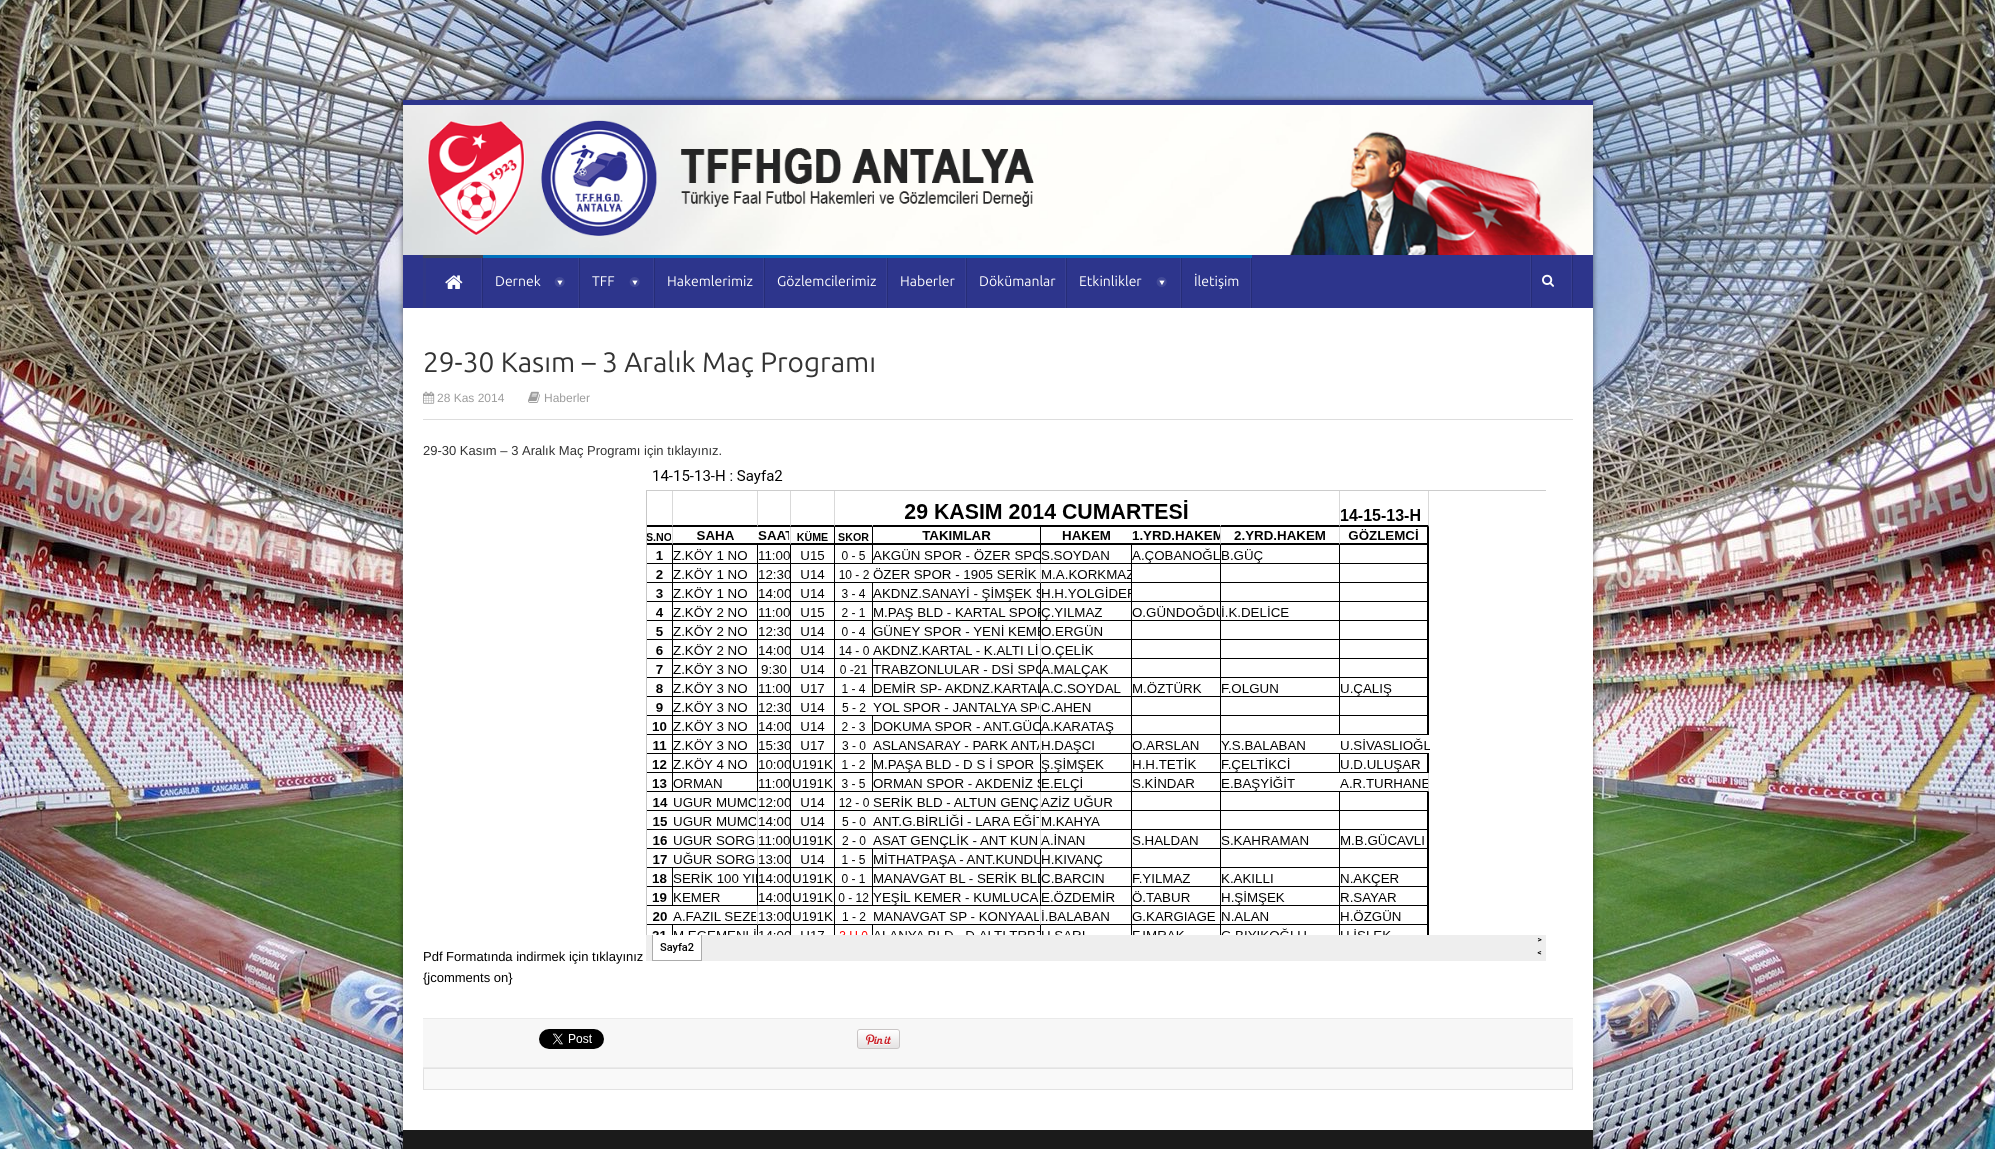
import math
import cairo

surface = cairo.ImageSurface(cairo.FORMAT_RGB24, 1995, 1149)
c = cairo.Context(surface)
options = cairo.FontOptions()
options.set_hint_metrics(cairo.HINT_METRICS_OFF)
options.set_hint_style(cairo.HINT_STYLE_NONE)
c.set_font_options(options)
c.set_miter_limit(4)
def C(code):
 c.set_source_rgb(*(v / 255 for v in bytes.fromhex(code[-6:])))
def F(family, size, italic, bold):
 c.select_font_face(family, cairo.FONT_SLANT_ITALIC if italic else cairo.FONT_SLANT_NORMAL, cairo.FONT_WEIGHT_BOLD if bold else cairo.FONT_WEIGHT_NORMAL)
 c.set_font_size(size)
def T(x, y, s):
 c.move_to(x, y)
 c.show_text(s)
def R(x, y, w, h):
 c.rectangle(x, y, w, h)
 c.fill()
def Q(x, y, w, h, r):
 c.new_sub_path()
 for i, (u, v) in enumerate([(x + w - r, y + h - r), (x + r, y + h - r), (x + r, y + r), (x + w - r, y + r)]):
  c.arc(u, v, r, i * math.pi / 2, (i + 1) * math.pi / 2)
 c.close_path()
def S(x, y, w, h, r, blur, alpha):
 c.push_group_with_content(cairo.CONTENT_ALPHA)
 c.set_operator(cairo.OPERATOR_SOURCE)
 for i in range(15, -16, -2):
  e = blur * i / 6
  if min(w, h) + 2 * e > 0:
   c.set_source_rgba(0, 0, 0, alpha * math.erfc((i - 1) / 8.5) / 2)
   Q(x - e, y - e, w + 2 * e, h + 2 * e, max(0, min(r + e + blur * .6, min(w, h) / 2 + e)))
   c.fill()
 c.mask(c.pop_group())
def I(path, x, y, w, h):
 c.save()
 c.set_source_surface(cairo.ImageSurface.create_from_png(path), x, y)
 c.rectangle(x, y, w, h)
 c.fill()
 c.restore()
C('ffffff')
c.paint()
I('1.png',0,0,1995,1149)
C('000000')
S(402,99,1192,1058,0,2.5,.4)
C('ffffff')
R(403,308,1190,822)
C('2d358c')
R(403,100,1190,5)
I('2.png',403,105,1190,150)
I('3.png',427,120,607,116)
R(403,255,1190,53)
C('303786')
R(423,255,3,53)
I('4.png',481,258,2,50)
C('3f4457')
R(423,255,60,3)
I('5.png',445,275,18,14)
I('4.png',578,258,2,50)
C('0072bc')
R(483,255,769,3)
I('6.png',554,277,11,10)
F('Ubuntu',14,0,0)
C('ffffff')
T(495,286,'Dernek')
I('4.png',653,258,2,50)
I('6.png',629,277,11,10)
T(592,286,'TFF')
I('4.png',763,258,2,50)
T(667,286,'Hakemlerimiz')
I('4.png',886,258,2,50)
T(777,286,'Gözlemcilerimiz')
I('4.png',965,258,2,50)
T(900,286,'Haberler')
I('4.png',1065,258,2,50)
T(979,286,'Dökümanlar')
I('4.png',1180,258,2,50)
I('6.png',1156,277,11,10)
T(1079,286,'Etkinlikler')
I('4.png',1250,258,2,50)
T(1194,286,'İletişim')
I('7.png',1530,255,2,52)
I('7.png',1571,255,2,52)
I('8.png',1542,274,12,13)
F('Ubuntu',28,0,0)
C('333333')
T(423,372,'29-30 Kasım – 3 Aralık Maç Programı')
I('9.png',423,391,12,13)
F('Liberation Sans',12,0,0)
C('9c9c9c')
T(437,402,'28 Kas 2014')
I('10.png',528,391,12,12)
T(544,402,'Haberler')
C('dddddd')
R(423,419,1150,1)
F('Liberation Sans',13,0,0)
C('333333')
T(423,455,'29-30 Kasım – 3 Aralık Maç Programı için tıklayınız.')
C('000000')
T(423,961,'Pdf Formatında indirmek için tıklayınız')
I('11.png',646,470,900,491)
T(423,982,'{jcomments on}')
C('f7f7f7')
R(423,1019,1150,48)
C('eaeaea')
R(423,1018,1150,1)
R(423,1067,1150,1)
I('12.png',539,1029,65,20)
I('13.png',857,1029,43,20)
C('f9f9f9')
c.rectangle(423.5,1068.5,1149,21)
c.fill_preserve()
C('e2e2e2')
c.set_line_width(1)
c.stroke()
C('1b1b1b')
R(403,1130,1190,19)
surface.write_to_png('o.png')
